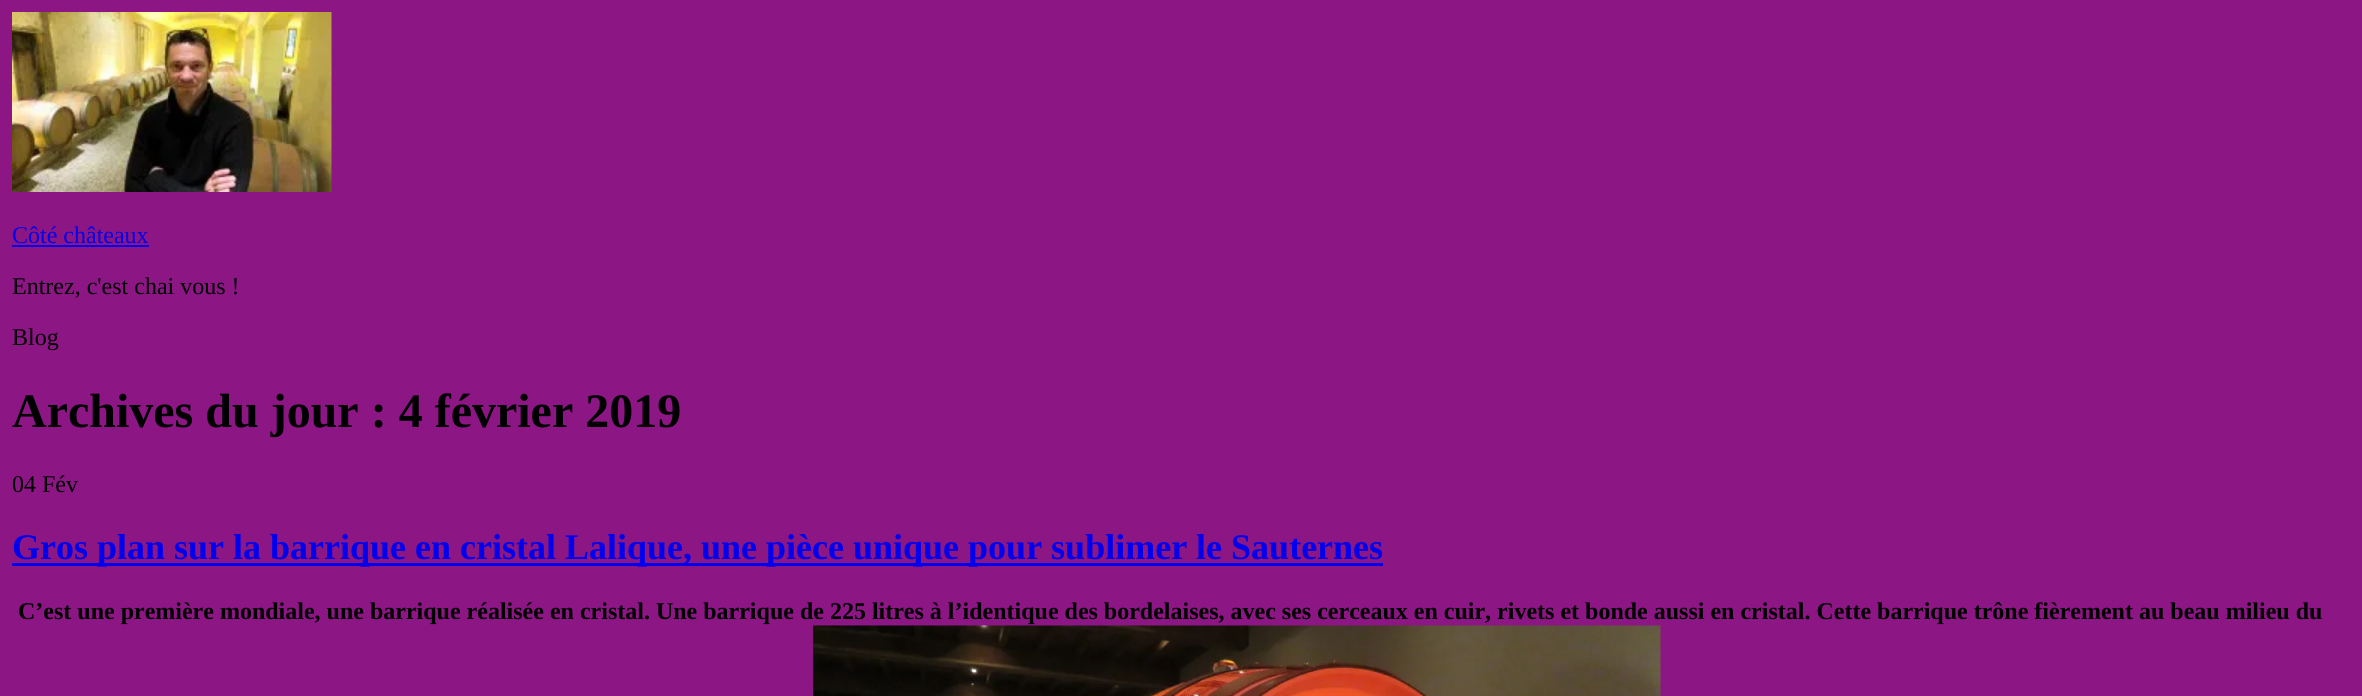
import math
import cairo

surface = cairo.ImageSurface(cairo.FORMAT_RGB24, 2362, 696)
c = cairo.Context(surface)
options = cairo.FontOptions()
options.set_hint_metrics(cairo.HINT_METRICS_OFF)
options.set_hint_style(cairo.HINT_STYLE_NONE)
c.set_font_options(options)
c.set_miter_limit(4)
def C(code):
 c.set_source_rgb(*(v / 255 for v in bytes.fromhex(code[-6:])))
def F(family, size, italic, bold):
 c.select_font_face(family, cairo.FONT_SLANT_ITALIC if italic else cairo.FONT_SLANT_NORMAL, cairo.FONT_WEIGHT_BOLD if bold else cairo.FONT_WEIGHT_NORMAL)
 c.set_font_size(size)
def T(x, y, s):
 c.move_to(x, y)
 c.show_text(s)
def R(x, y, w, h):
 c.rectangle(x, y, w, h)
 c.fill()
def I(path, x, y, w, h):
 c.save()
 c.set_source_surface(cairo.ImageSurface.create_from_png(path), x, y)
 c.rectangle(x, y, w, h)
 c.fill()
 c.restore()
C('8c1684')
c.paint()
I('1.png',12,12,320,180)
F('Liberation Serif',24,0,0)
C('0000ee')
T(12,243,'Côté châteaux')
R(12,245,137,2)
C('000000')
T(12,294,'Entrez, c\'est chai vous !')
T(12,345,'Blog')
F('Liberation Serif',48,0,1)
T(12,427,'Archives du jour : 4 février 2019')
F('Liberation Serif',24,0,0)
T(12,492,'04 Fév')
C('0000ee')
R(12,563,1371,3)
F('Liberation Serif',36,0,1)
T(12,559,'Gros plan sur la barrique en cristal Lalique, une pièce unique pour sublimer le Sauternes')
F('Liberation Serif',24,0,1)
C('000000')
T(18,619,'C’est une première mondiale, une barrique réalisée en cristal. Une barrique de 225 litres à l’identique des bordelaises, avec ses cerceaux en cuir, rivets et bonde aussi en cristal. Cette barrique trône fièrement au beau milieu du')
I('2.png',813,625,848,71)
surface.write_to_png('o.png')
